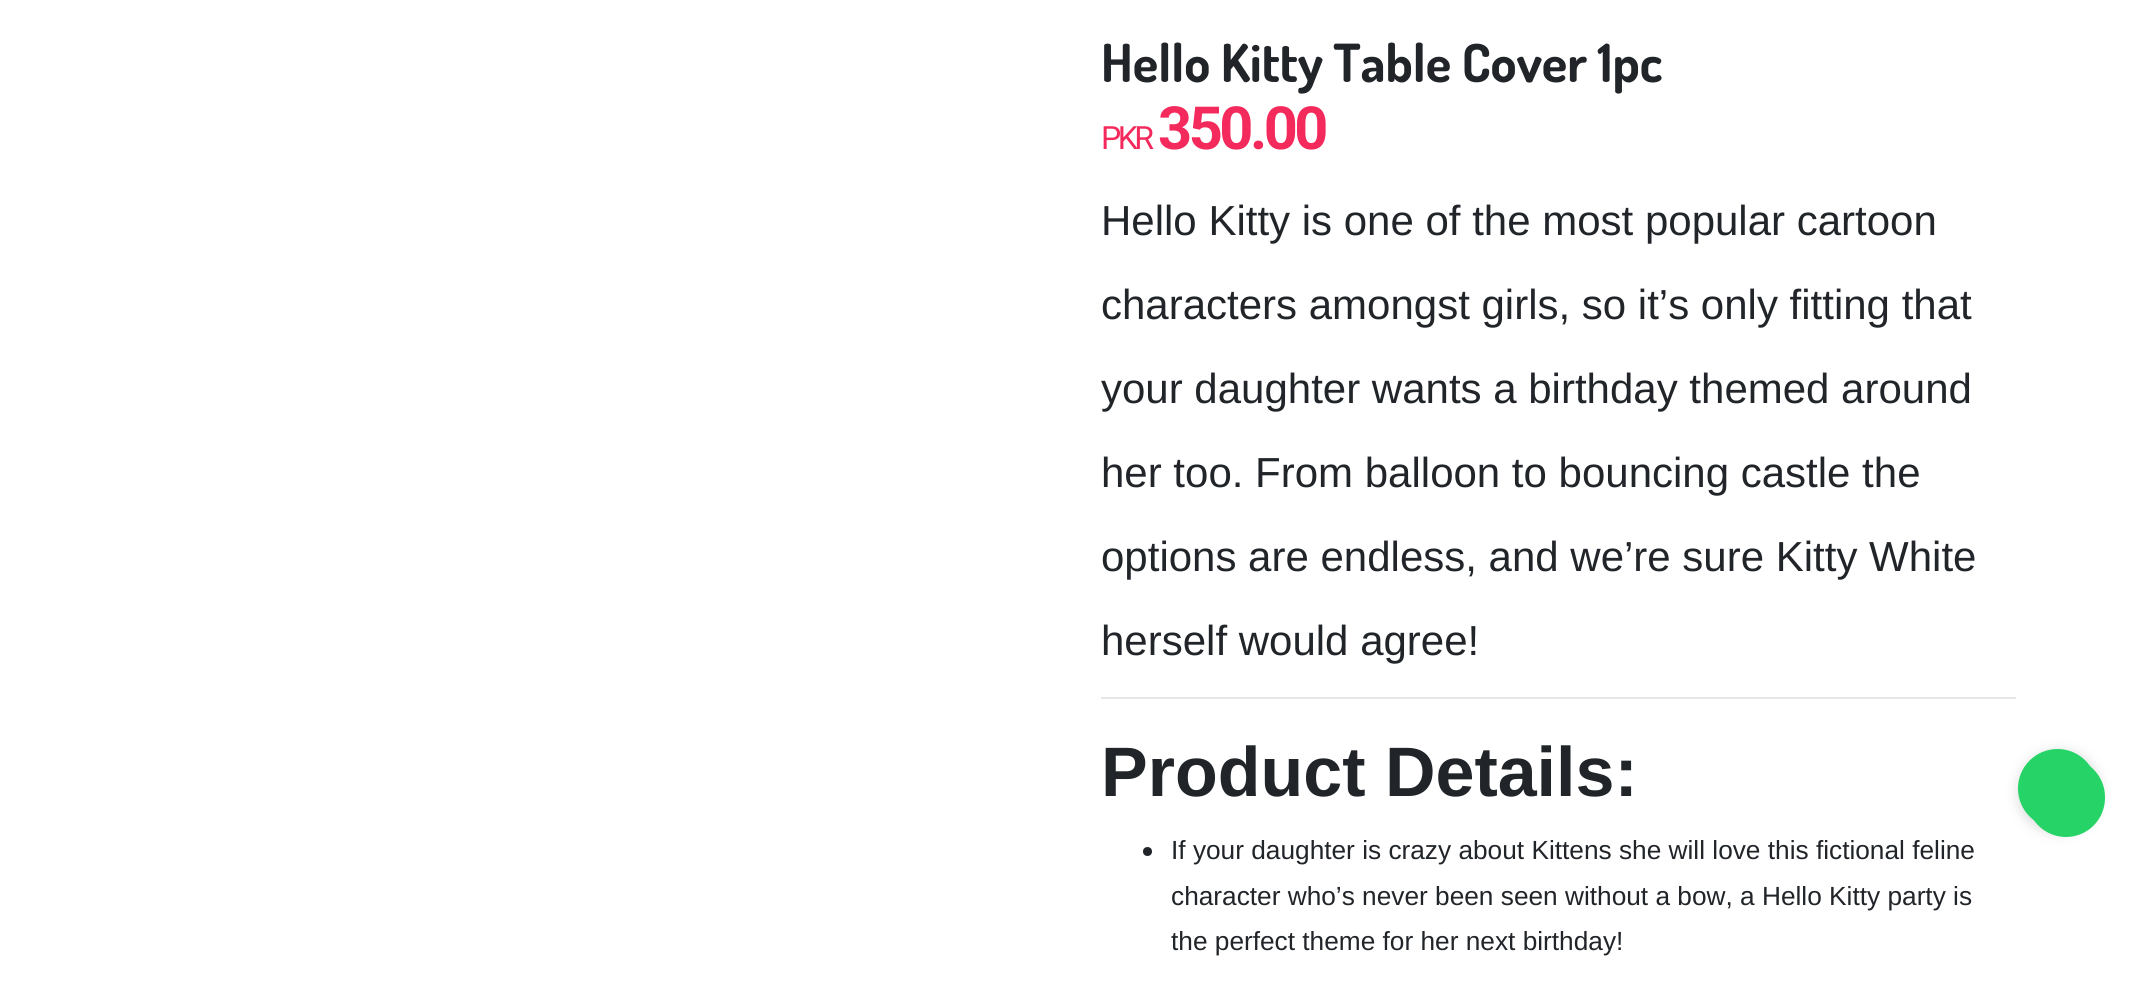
import math
import cairo

surface = cairo.ImageSurface(cairo.FORMAT_RGB24, 2148, 983)
c = cairo.Context(surface)
options = cairo.FontOptions()
options.set_hint_metrics(cairo.HINT_METRICS_OFF)
options.set_hint_style(cairo.HINT_STYLE_NONE)
c.set_font_options(options)
c.set_miter_limit(4)
def C(code):
 c.set_source_rgb(*(v / 255 for v in bytes.fromhex(code[-6:])))
def F(family, size, italic, bold):
 c.select_font_face(family, cairo.FONT_SLANT_ITALIC if italic else cairo.FONT_SLANT_NORMAL, cairo.FONT_WEIGHT_BOLD if bold else cairo.FONT_WEIGHT_NORMAL)
 c.set_font_size(size)
def T(x, y, s):
 c.move_to(x, y)
 c.show_text(s)
def L(x, y, s, letter, word):
 c.move_to(x, y)
 for ch in s:
  c.show_text(ch)
  c.rel_move_to(letter + word * (ch == ' '), 0)
def R(x, y, w, h):
 c.rectangle(x, y, w, h)
 c.fill()
def Q(x, y, w, h, r):
 c.new_sub_path()
 for i, (u, v) in enumerate([(x + w - r, y + h - r), (x + r, y + h - r), (x + r, y + r), (x + w - r, y + r)]):
  c.arc(u, v, r, i * math.pi / 2, (i + 1) * math.pi / 2)
 c.close_path()
def S(x, y, w, h, r, blur, alpha):
 c.push_group_with_content(cairo.CONTENT_ALPHA)
 c.set_operator(cairo.OPERATOR_SOURCE)
 for i in range(15, -16, -2):
  e = blur * i / 6
  if min(w, h) + 2 * e > 0:
   c.set_source_rgba(0, 0, 0, alpha * math.erfc((i - 1) / 8.5) / 2)
   Q(x - e, y - e, w + 2 * e, h + 2 * e, max(0, min(r + e + blur * .6, min(w, h) / 2 + e)))
   c.fill()
 c.mask(c.pop_group())
C('ffffff')
c.paint()
F('Dosis',52.5,0,1)
C('212529')
T(1101,82,'Hello Kitty Table Cover 1pc')
F('Roboto',32,0,0)
C('f4295c')
L(1101,149,'PKR',-3.5,0)
F('Roboto',59.5,0,1)
L(1158,149,'350.00',-3.5,0)
F('Liberation Sans',42,0,0)
C('212529')
T(1101,235,'Hello Kitty is one of the most popular cartoon')
T(1101,319,'characters amongst girls, so it’s only fitting that')
T(1101,403,'your daughter wants a birthday themed around')
T(1101,487,'her too. From balloon to bouncing castle the')
T(1101,571,'options are endless, and we’re sure Kitty White')
T(1101,655,'herself would agree!')
C('e6e6e6')
R(1101,697,915,2)
F('Liberation Sans',70,0,1)
C('212529')
T(1101,796,'Product Details:')
c.new_path()
c.arc(1147.5,851.5,4.5,0,2 * math.pi)
c.fill()
F('Liberation Sans',26.25,0,0)
T(1171,859,'If your daughter is crazy about Kittens she will love this fictional feline')
T(1171,905,'character who’s never been seen without a bow, a Hello Kitty party is')
T(1171,950,'the perfect theme for her next birthday!')
C('464646')
S(2020,753,78,78,39,7,.25)
C('25d366')
c.arc(2057.5,788.5,39.5,0,2 * math.pi)
c.fill()
Q(2027,758,78,79,39)
c.fill()
surface.write_to_png('o.png')
